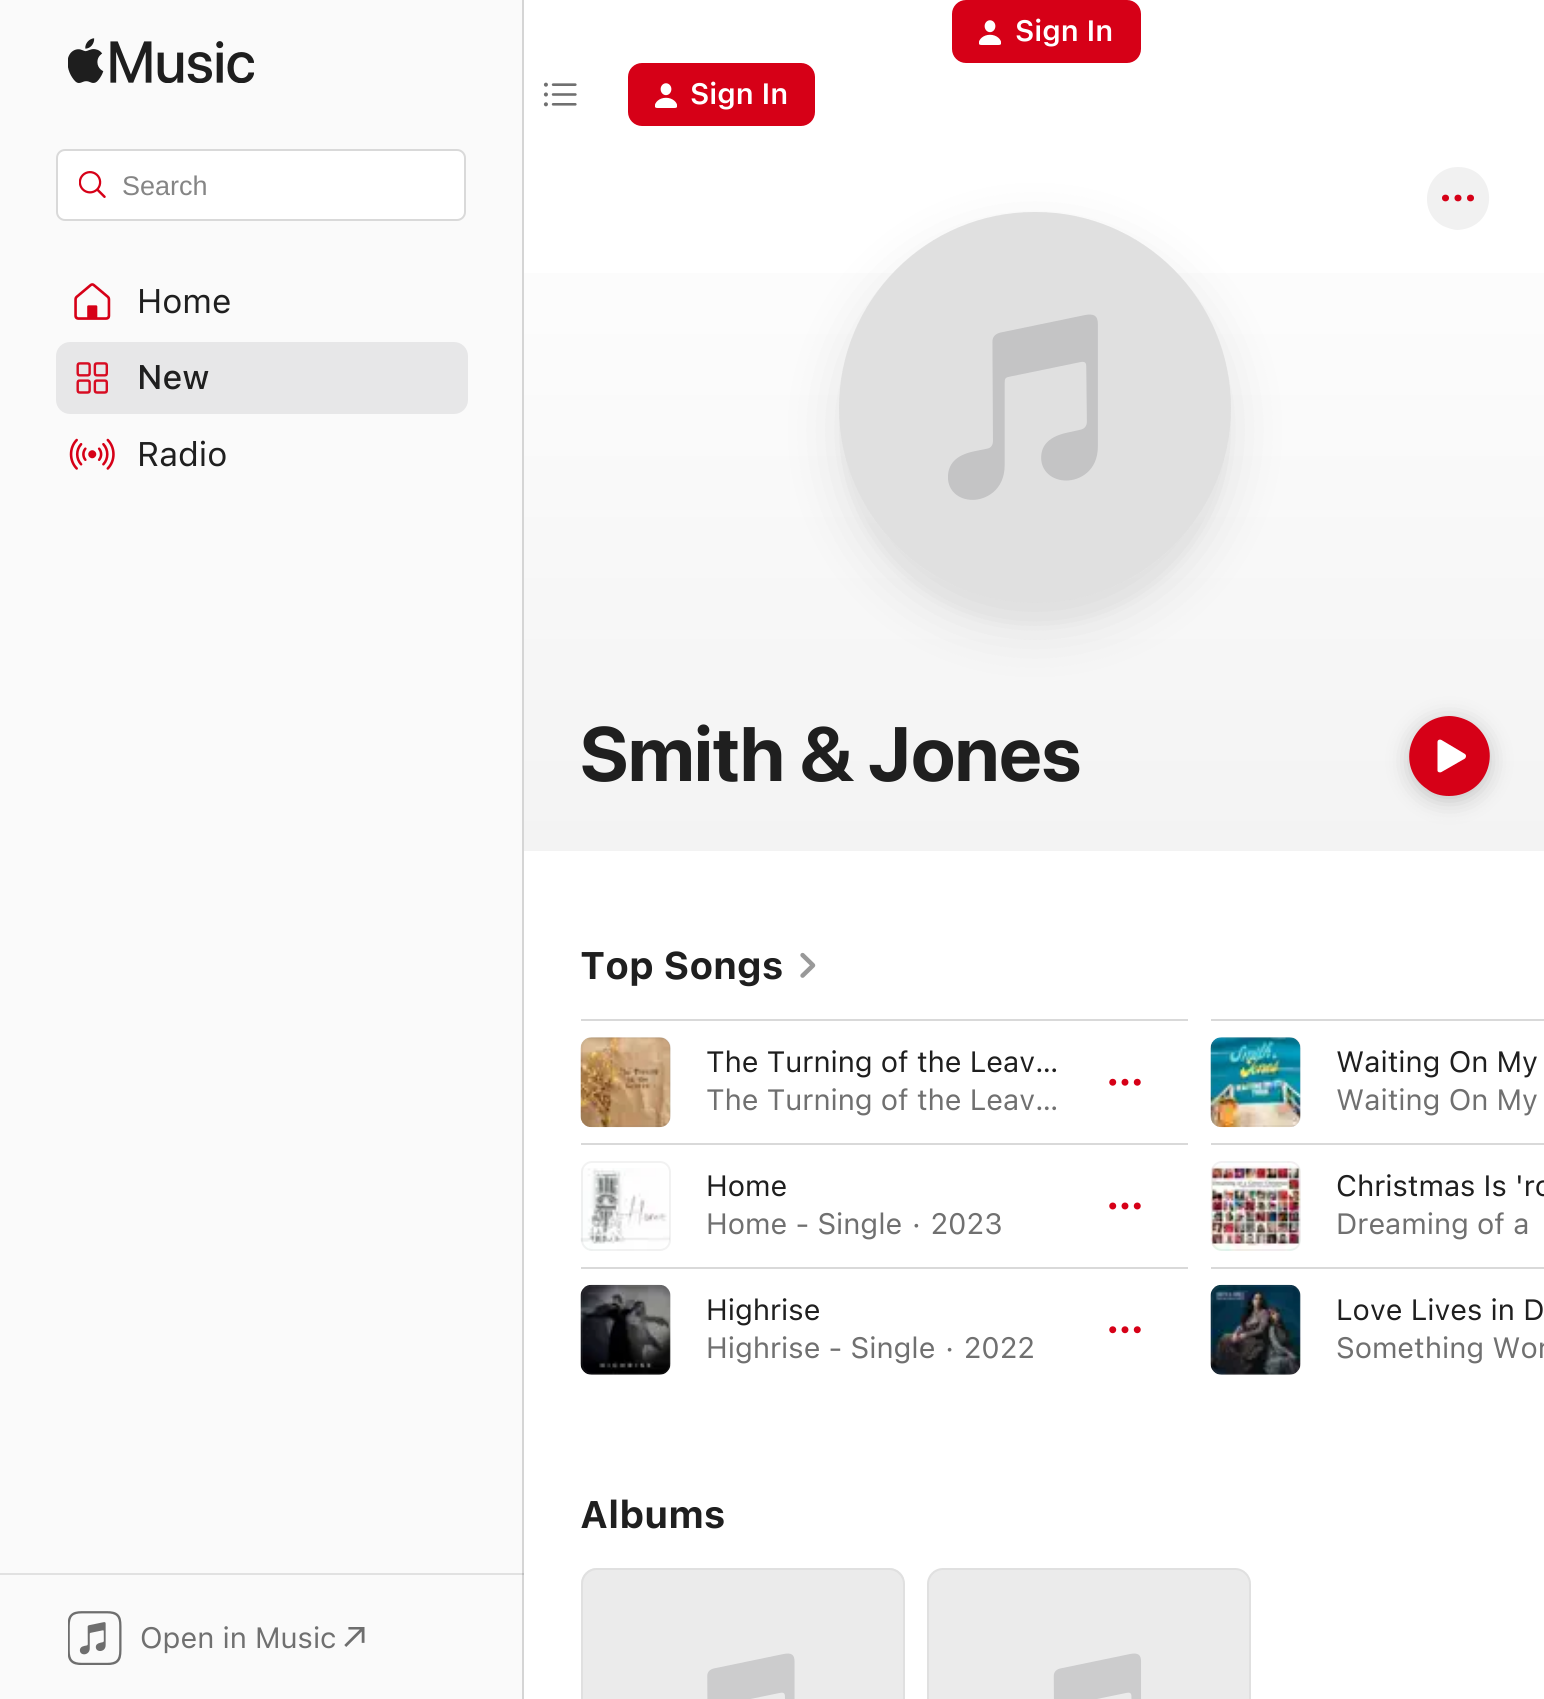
import math
import cairo

surface = cairo.ImageSurface(cairo.FORMAT_RGB24, 1544, 1699)
c = cairo.Context(surface)
options = cairo.FontOptions()
options.set_hint_metrics(cairo.HINT_METRICS_OFF)
options.set_hint_style(cairo.HINT_STYLE_NONE)
c.set_font_options(options)
c.set_miter_limit(4)
def C(code):
 c.set_source_rgb(*(v / 255 for v in bytes.fromhex(code[-6:])))
def F(family, size, italic, bold):
 c.select_font_face(family, cairo.FONT_SLANT_ITALIC if italic else cairo.FONT_SLANT_NORMAL, cairo.FONT_WEIGHT_BOLD if bold else cairo.FONT_WEIGHT_NORMAL)
 c.set_font_size(size)
def T(x, y, s):
 c.move_to(x, y)
 c.show_text(s)
def R(x, y, w, h):
 c.rectangle(x, y, w, h)
 c.fill()
def Q(x, y, w, h, r):
 c.new_sub_path()
 for i, (u, v) in enumerate([(x + w - r, y + h - r), (x + r, y + h - r), (x + r, y + r), (x + w - r, y + r)]):
  c.arc(u, v, r, i * math.pi / 2, (i + 1) * math.pi / 2)
 c.close_path()
def S(x, y, w, h, r, blur, alpha):
 c.push_group_with_content(cairo.CONTENT_ALPHA)
 c.set_operator(cairo.OPERATOR_SOURCE)
 for i in range(15, -16, -2):
  e = blur * i / 6
  if min(w, h) + 2 * e > 0:
   c.set_source_rgba(0, 0, 0, alpha * math.erfc((i - 1) / 8.5) / 2)
   Q(x - e, y - e, w + 2 * e, h + 2 * e, max(0, min(r + e + blur * .6, min(w, h) / 2 + e)))
   c.fill()
 c.mask(c.pop_group())
def I(path, x, y, w, h):
 c.save()
 c.set_source_surface(cairo.ImageSurface.create_from_png(path), x, y)
 c.rectangle(x, y, w, h)
 c.fill()
 c.restore()
C('ffffff')
c.paint()
C('d60017')
Q(952,0,189,63,14)
c.fill()
I('1.png',979,20,22,25)
F('SF SemiBold',29.25,0,0)
C('ffffff')
T(1015,41,'Sign In')
I('2.png',543,82,34,25)
C('d60017')
Q(628,63,187,63,14)
c.fill()
I('1.png',655,83,22,25)
C('ffffff')
T(690,104,'Sign In')
C('fafafa')
R(0,0,522,1699)
C('e1e1e1')
R(0,1573,524,2)
C('d5d5d5')
R(522,0,2,1699)
C('c0c0c0')
R(522,1573,2,2)
I('3.png',68,38,186,45)
C('ffffff')
Q(57,150,408,70,8)
c.fill_preserve()
C('d9d9d9')
c.stroke()
I('4.png',79,171,27,27)
F('Liberation Sans',27,0,0)
C('858585')
T(122,195,'Search')
I('5.png',74,283,37,37)
F('SF',34,0,0)
C('1f1f1f')
T(137,313,'Home')
C('e7e7e8')
Q(56,342,412,72,14)
c.fill()
I('6.png',76,362,32,32)
F('SF Medium',34,0,0)
C('1f1f1f')
T(137,389,'New')
I('7.png',69,438,46,32)
F('SF',34,0,0)
T(137,466,'Radio')
I('8.png',68,1611,54,54)
F('SF',29.25,0,0)
C('707070')
T(140,1648,'Open in Music')
I('9.png',344,1627,21,20)
gradient = cairo.LinearGradient(1035,121,1035,851)
gradient.add_color_stop_rgba(0,1,1,1,1)
gradient.add_color_stop_rgba(1,0.953,0.953,0.953,1)
c.set_source(gradient)
R(524,273,1020,578)
C('000000')
S(839,234,392,392,196,28,.1)
I('11.png',840,427,390,96)
c.set_source_rgba(0.502,0.502,0.502,0.04)
c.new_path()
c.move_to(1035,234)
c.curve_to(1143,234,1231,322,1231,430)
c.curve_to(1231,538,1143,626,1035,626)
c.curve_to(927,626,839,538,839,430)
c.curve_to(839,322,927,234,1035,234)
c.close_path()
c.fill()
C('ebebeb')
Q(839,212,392,391,195.5)
c.fill()
I('10.png',948,314,150,186)
c.set_source_rgba(0.502,0.502,0.502,0.1)
c.new_path()
c.move_to(1034,212)
c.line_to(1036,212)
c.curve_to(1143,212,1231,300,1231,408)
c.curve_to(1231,515,1143,603,1036,603)
c.line_to(1034,603)
c.curve_to(927,603,839,515,839,408)
c.curve_to(839,300,927,212,1034,212)
c.close_path()
c.fill()
C('f1f1f1')
c.new_path()
c.move_to(1458,167)
c.curve_to(1498,167,1501,227,1458,230)
c.curve_to(1453,230,1448,228,1443,226)
c.curve_to(1415,211,1426,167,1458,167)
c.close_path()
c.fill()
C('d60017')
c.new_path()
c.move_to(1449,198)
c.curve_to(1449,193.5,1442,193.5,1442,198)
c.curve_to(1442,202.5,1449,202.5,1449,198)
c.close_path()
c.move_to(1461.5,198)
c.curve_to(1461.5,193.5,1454.5,193.5,1454.5,198)
c.curve_to(1454.5,202.5,1461.5,202.5,1461.5,198)
c.close_path()
c.move_to(1474,198)
c.curve_to(1474,193.5,1467,193.5,1467,198)
c.curve_to(1467,202.5,1474,202.5,1474,198)
c.close_path()
c.fill()
F('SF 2',76.5,0,1)
C('1f1f1f')
T(580,781,'Smith & Jones')
C('000000')
S(1409,720,81,81,40.5,11,.2)
C('d60017')
c.new_path()
c.move_to(1449,796)
c.curve_to(1441,796,1433,794,1427,789)
c.curve_to(1394,767,1410,717,1449,716)
c.curve_to(1457,716,1466,719,1472,723)
c.curve_to(1505,746,1489,796,1449,796)
c.close_path()
c.fill()
C('ffffff')
c.new_path()
c.move_to(1441.5,772)
c.curve_to(1439.5,773,1437.5,772,1437.5,770.5)
c.line_to(1437.5,742)
c.curve_to(1437.5,740,1439.5,739,1441.5,740)
c.line_to(1465,754)
c.curve_to(1465.5,754.5,1466,755,1466,756)
c.curve_to(1466,757,1465.5,758,1465,758.5)
c.close_path()
c.fill()
F('SF',38.25,0,1)
C('1f1f1f')
T(580,979,'Top Songs')
I('12.png',800,952,16,26)
C('d9d9d9')
R(581,1019,607,2)
I('13.png',580,1037,91,91)
Q(582,1038,88,88,10)
c.set_source_rgba(0.502,0.502,0.502,0.1)
c.stroke()
F('SF',29.25,0,0)
C('1f1f1f')
T(706,1072,'The Turning of the Leav…')
C('707070')
T(706,1110,'The Turning of the Leav…')
I('14.png',1109,1078,32,8)
C('d9d9d9')
R(1211,1019,333,2)
I('15.png',1210,1037,91,91)
Q(1212,1038,88,88,10)
c.set_source_rgba(0.502,0.502,0.502,0.1)
c.stroke()
C('1f1f1f')
T(1336,1072,'Waiting On My')
C('707070')
T(1336,1110,'Waiting On My')
C('d9d9d9')
R(581,1143,607,2)
I('16.png',580,1168,90,83)
Q(582,1162,88,88,10)
c.set_source_rgba(0.502,0.502,0.502,0.1)
c.stroke()
C('1f1f1f')
T(706,1196,'Home')
C('707070')
T(706,1234,'Home - Single · 2023')
I('17.png',1109,1202,32,8)
C('d9d9d9')
R(1211,1143,333,2)
I('18.png',1210,1161,91,90)
Q(1212,1162,88,88,10)
c.set_source_rgba(0.502,0.502,0.502,0.1)
c.stroke()
C('1f1f1f')
T(1336,1196,'Christmas Is \'ro')
C('707070')
T(1336,1234,'Dreaming of a')
C('d9d9d9')
R(581,1267,607,2)
I('19.png',580,1284,91,91)
Q(582,1286,88,88,10)
c.set_source_rgba(0.502,0.502,0.502,0.1)
c.stroke()
C('1f1f1f')
T(706,1320,'Highrise')
C('707070')
T(706,1358,'Highrise - Single · 2022')
I('20.png',1109,1326,32,8)
C('d9d9d9')
R(1211,1267,333,2)
I('21.png',1210,1284,91,91)
Q(1212,1286,88,88,10)
c.set_source_rgba(0.502,0.502,0.502,0.1)
c.stroke()
C('1f1f1f')
T(1336,1320,'Love Lives in D')
C('707070')
T(1336,1358,'Something Wor')
F('SF',38.25,0,1)
C('1f1f1f')
T(580,1528,'Albums')
C('ebebeb')
c.new_path()
c.move_to(597,1568)
c.line_to(889,1568)
c.curve_to(898,1568,905,1575,905,1584)
c.line_to(905,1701)
c.line_to(581,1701)
c.line_to(581,1584)
c.curve_to(581,1575,588,1568,597,1568)
c.close_path()
c.fill()
I('22.png',581,1568,323,131)
Q(582,1569,322,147,15)
c.set_source_rgba(0.502,0.502,0.502,0.1)
c.stroke()
I('23.png',927,1568,324,131)
Q(928,1569,322,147,15)
c.stroke()
surface.write_to_png('o.png')
